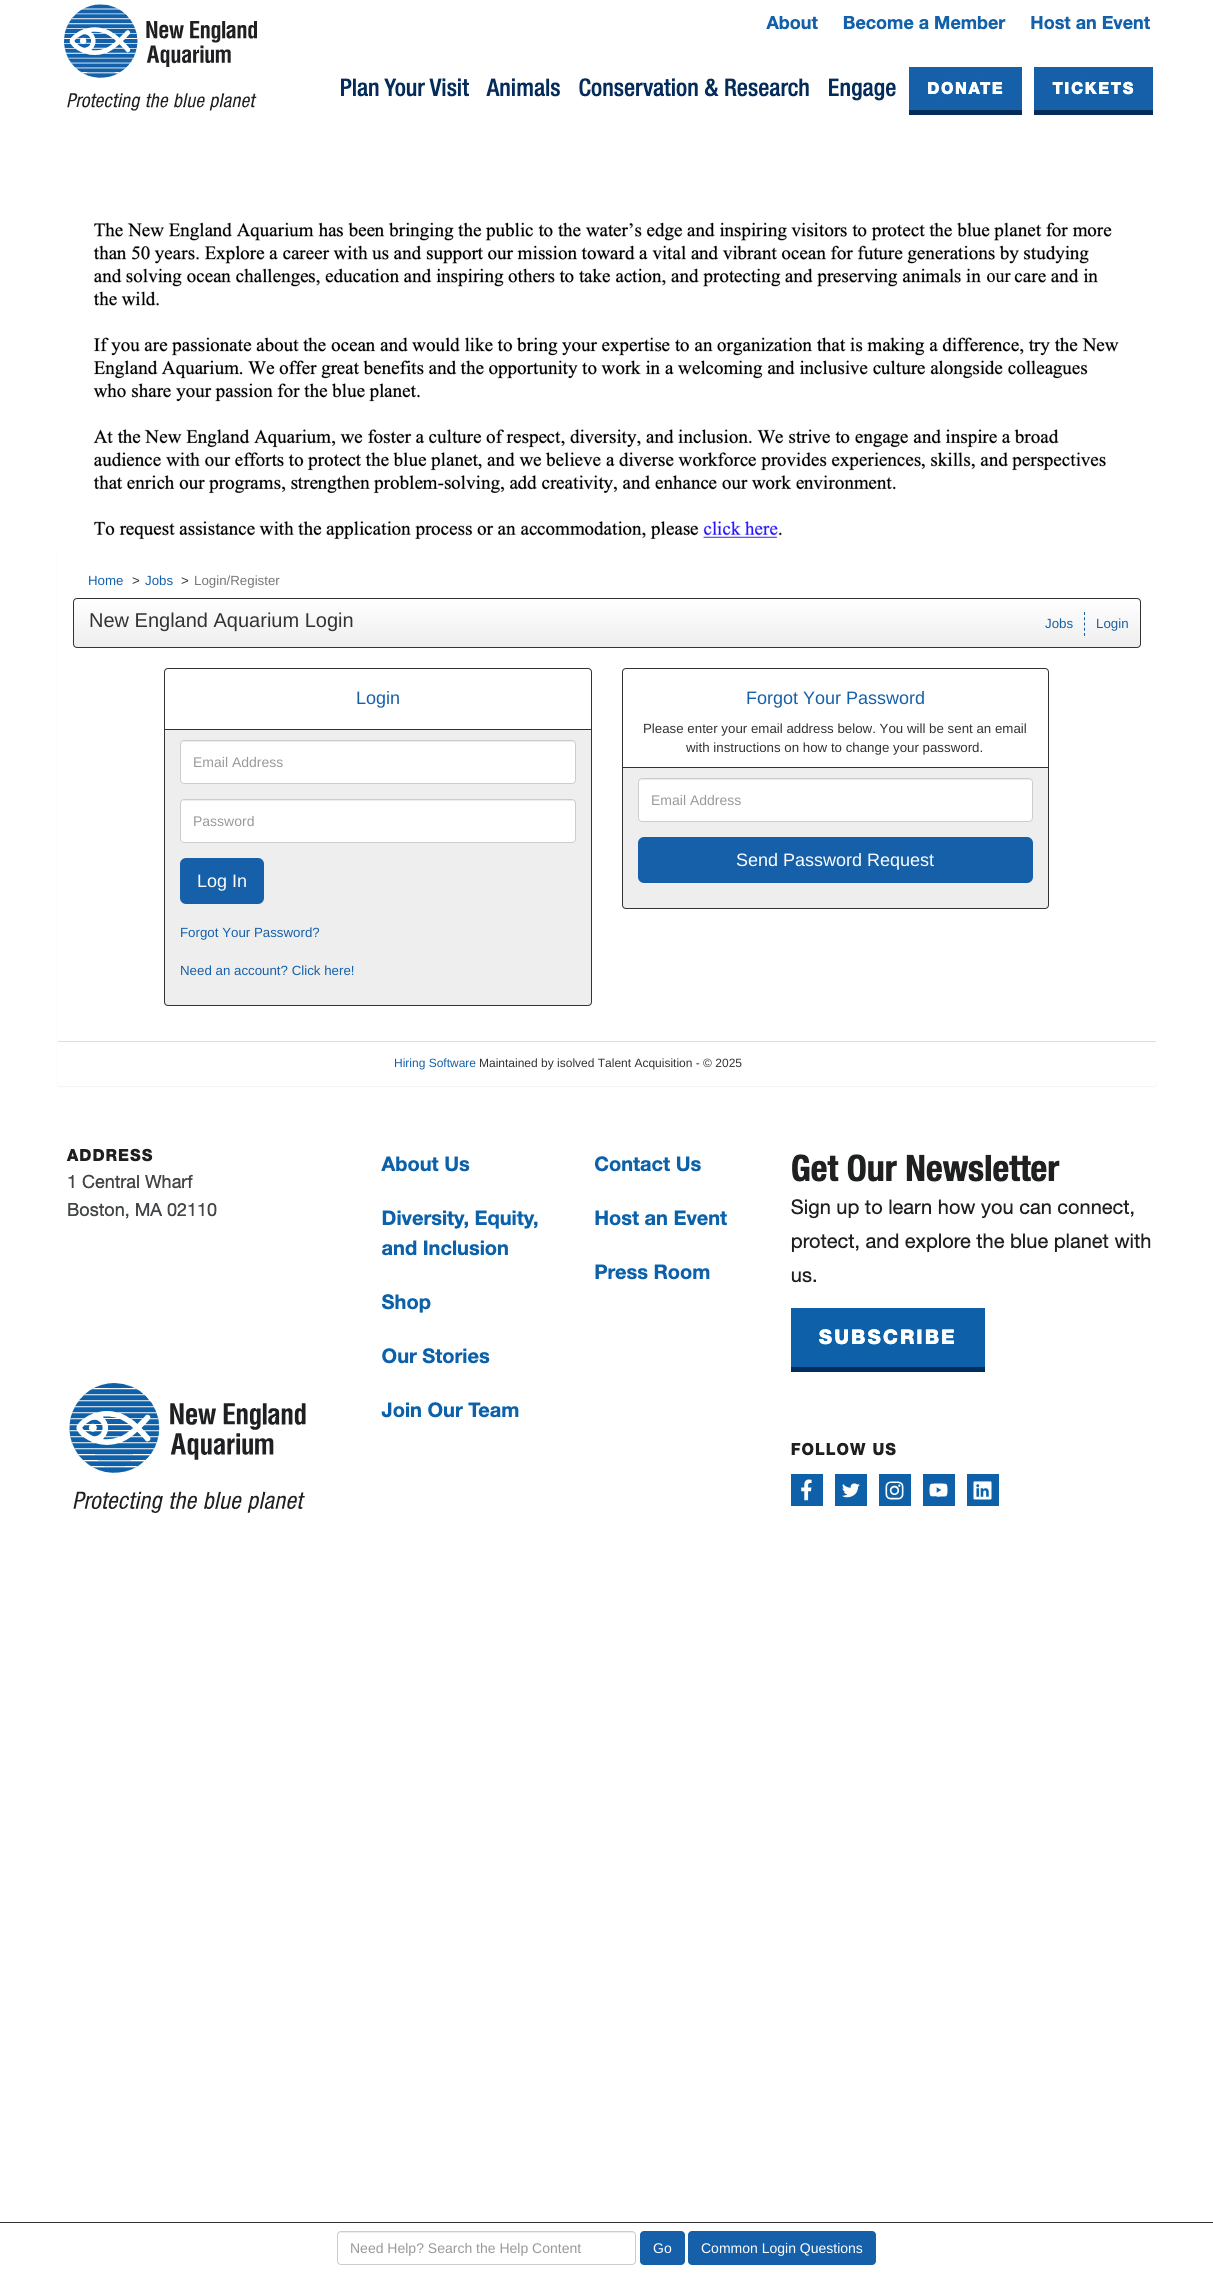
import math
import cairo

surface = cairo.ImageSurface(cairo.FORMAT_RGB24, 1213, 2273)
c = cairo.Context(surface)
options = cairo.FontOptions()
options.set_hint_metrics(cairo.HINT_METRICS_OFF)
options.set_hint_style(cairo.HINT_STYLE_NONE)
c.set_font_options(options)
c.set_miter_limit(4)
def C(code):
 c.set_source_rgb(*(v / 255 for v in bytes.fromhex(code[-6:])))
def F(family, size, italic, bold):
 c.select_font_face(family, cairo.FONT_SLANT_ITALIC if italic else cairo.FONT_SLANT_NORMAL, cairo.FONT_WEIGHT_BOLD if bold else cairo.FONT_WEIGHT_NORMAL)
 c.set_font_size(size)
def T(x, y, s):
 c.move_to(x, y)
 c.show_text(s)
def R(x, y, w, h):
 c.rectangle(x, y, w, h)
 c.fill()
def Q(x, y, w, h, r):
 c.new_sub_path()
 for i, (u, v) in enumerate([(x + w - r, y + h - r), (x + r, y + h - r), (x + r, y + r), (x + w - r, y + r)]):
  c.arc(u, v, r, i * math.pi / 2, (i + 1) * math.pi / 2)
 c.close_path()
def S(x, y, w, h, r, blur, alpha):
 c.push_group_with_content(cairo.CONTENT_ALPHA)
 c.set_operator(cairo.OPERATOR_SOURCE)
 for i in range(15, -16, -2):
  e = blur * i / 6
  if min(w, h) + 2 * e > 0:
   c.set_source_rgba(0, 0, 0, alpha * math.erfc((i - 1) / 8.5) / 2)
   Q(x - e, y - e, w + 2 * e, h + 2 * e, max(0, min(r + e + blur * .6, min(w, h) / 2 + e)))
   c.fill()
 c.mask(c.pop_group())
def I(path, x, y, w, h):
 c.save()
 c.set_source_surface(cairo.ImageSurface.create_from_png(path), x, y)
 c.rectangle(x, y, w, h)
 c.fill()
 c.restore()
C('ffffff')
c.paint()
I('1.png',64,4,1089,536)
C('000000')
S(57,548,1100,539,4,.5,.05)
C('ffffff')
Q(57,547,1100,539,4)
c.fill()
F('Liberation Sans',13.3,0,0)
C('1560a9')
T(88,585,'Home')
C('333333')
T(132,585,'>')
C('1560a9')
T(145,585,'Jobs')
C('333333')
T(181,585,'>')
C('777777')
T(194,585,'Login/Register')
c.save()
Q(73,598,1068,50,4)
c.clip()
gradient = cairo.LinearGradient(607,599,607,647)
gradient.add_color_stop_rgba(0,1,1,1,1)
gradient.add_color_stop_rgba(1,0.933,0.933,0.933,1)
c.set_source(gradient)
R(73,599,1068,48)
c.restore()
Q(73.5,598.5,1067,49,3.5)
C('333333')
c.set_line_width(1)
c.stroke()
F('Liberation Sans',20,0,0)
T(89,627,'New England Aquarium Login')
F('Liberation Sans',13.3,0,0)
C('1560a9')
T(1045,628,'Jobs')
c.new_path()
c.move_to(1084.5,612)
c.line_to(1084.5,636)
c.set_dash([3,2.25])
c.stroke()
T(1096,628,'Login')
c.new_path()
c.move_to(168,668.5)
c.line_to(588,668.5)
c.curve_to(590,668.5,591.5,670,591.5,672)
c.line_to(591.5,729.5)
c.line_to(164.5,729.5)
c.line_to(164.5,672)
c.curve_to(164.5,670,166,668.5,168,668.5)
c.close_path()
C('333333')
c.set_dash([])
c.stroke()
F('Liberation Sans',18,0,0)
C('1560a9')
T(356,704,'Login')
C('eeeeee')
c.new_path()
c.move_to(164.5,729.5)
c.line_to(591.5,729.5)
c.line_to(591.5,1002)
c.curve_to(591.5,1004,590,1005.5,588,1005.5)
c.line_to(168,1005.5)
c.curve_to(166,1005.5,164.5,1004,164.5,1002)
c.close_path()
c.fill_preserve()
C('333333')
c.stroke()
C('ffffff')
Q(180,740,396,44,4)
c.fill()
C('ececec')
c.new_path()
c.move_to(184,742)
c.line_to(572,742)
c.curve_to(574,742,575,743,575,745)
c.curve_to(575,743,574,741,572,741)
c.line_to(184,741)
c.line_to(182,742)
c.line_to(181,745)
c.curve_to(181,743,182,742,184,742)
c.close_path()
c.fill()
Q(180.5,740.5,395,43,3.5)
C('cccccc')
c.stroke()
F('Liberation Sans',14,0,0)
C('999999')
T(193,767,'Email Address')
C('ffffff')
Q(180,799,396,44,4)
c.fill()
C('ececec')
c.new_path()
c.move_to(184,801)
c.line_to(572,801)
c.curve_to(574,801,575,802,575,804)
c.curve_to(575,802,574,800,572,800)
c.line_to(184,800)
c.line_to(182,801)
c.line_to(181,804)
c.curve_to(181,802,182,801,184,801)
c.close_path()
c.fill()
Q(180.5,799.5,395,43,3.5)
C('cccccc')
c.stroke()
C('999999')
T(193,826,'Password')
C('1560a9')
Q(180,858,84,46,6)
c.fill()
F('Liberation Sans',18,0,0)
C('ffffff')
T(197,887,'Log In')
F('Liberation Sans',13.3,0,0)
C('1560a9')
T(180,937,'Forgot Your Password?')
T(180,975,'Need an account? Click here!')
c.new_path()
c.move_to(626,668.5)
c.line_to(1045,668.5)
c.curve_to(1047,668.5,1048.5,670,1048.5,672)
c.line_to(1048.5,767.5)
c.line_to(622.5,767.5)
c.line_to(622.5,672)
c.curve_to(622.5,670,624,668.5,626,668.5)
c.close_path()
C('333333')
c.stroke()
F('Liberation Sans',18,0,0)
C('1560a9')
T(746,704,'Forgot Your Password')
F('Liberation Sans',13.3,0,0)
C('333333')
T(643,733,'Please enter your email address below. You will be sent an email')
T(686,752,'with instructions on how to change your password.')
C('eeeeee')
c.new_path()
c.move_to(622.5,767.5)
c.line_to(1048.5,767.5)
c.line_to(1048.5,905)
c.curve_to(1048.5,907,1047,908.5,1045,908.5)
c.line_to(626,908.5)
c.curve_to(624,908.5,622.5,907,622.5,905)
c.close_path()
c.fill_preserve()
C('333333')
c.stroke()
C('ffffff')
Q(638,778,395,44,4)
c.fill()
C('ececec')
c.new_path()
c.move_to(642,780)
c.line_to(1029,780)
c.curve_to(1031,780,1032,781,1032,783)
c.curve_to(1032,781,1031,779,1029,779)
c.line_to(642,779)
c.line_to(640,780)
c.line_to(639,783)
c.curve_to(639,781,640,780,642,780)
c.close_path()
c.fill()
Q(638.5,778.5,394,43,3.5)
C('cccccc')
c.stroke()
F('Liberation Sans',14,0,0)
C('999999')
T(651,805,'Email Address')
C('1560a9')
Q(638,837,395,46,6)
c.fill()
F('Liberation Sans',18,0,0)
C('ffffff')
T(736,866,'Send Password Request')
C('dddddd')
R(58,1041,1098,1)
F('Liberation Sans',12,0,0)
C('1560a9')
T(394,1067,'Hiring Software')
C('333333')
T(479,1067,'Maintained by isolved Talent Acquisition - © 2025')
I('2.png',66,1148,1085,365)
R(0,2222,1213,1)
C('ececec')
c.new_path()
c.move_to(341,2233)
c.line_to(632,2233)
c.curve_to(634,2233,635,2234,635,2236)
c.line_to(634,2233)
c.line_to(633,2232)
c.line_to(341,2232)
c.curve_to(339,2232,338,2234,338,2236)
c.curve_to(338,2234,339,2233,341,2233)
c.close_path()
c.fill()
Q(337.5,2231.5,298,33,3.5)
C('cccccc')
c.stroke()
F('Liberation Sans',14,0,0)
C('999999')
T(350,2253,'Need Help? Search the Help Content')
C('1560a9')
Q(640,2231,45,34,4)
c.fill()
C('ffffff')
T(653,2253,'Go')
C('1560a9')
Q(688,2231,188,34,4)
c.fill()
C('ffffff')
T(701,2253,'Common Login Questions')
surface.write_to_png('o.png')
